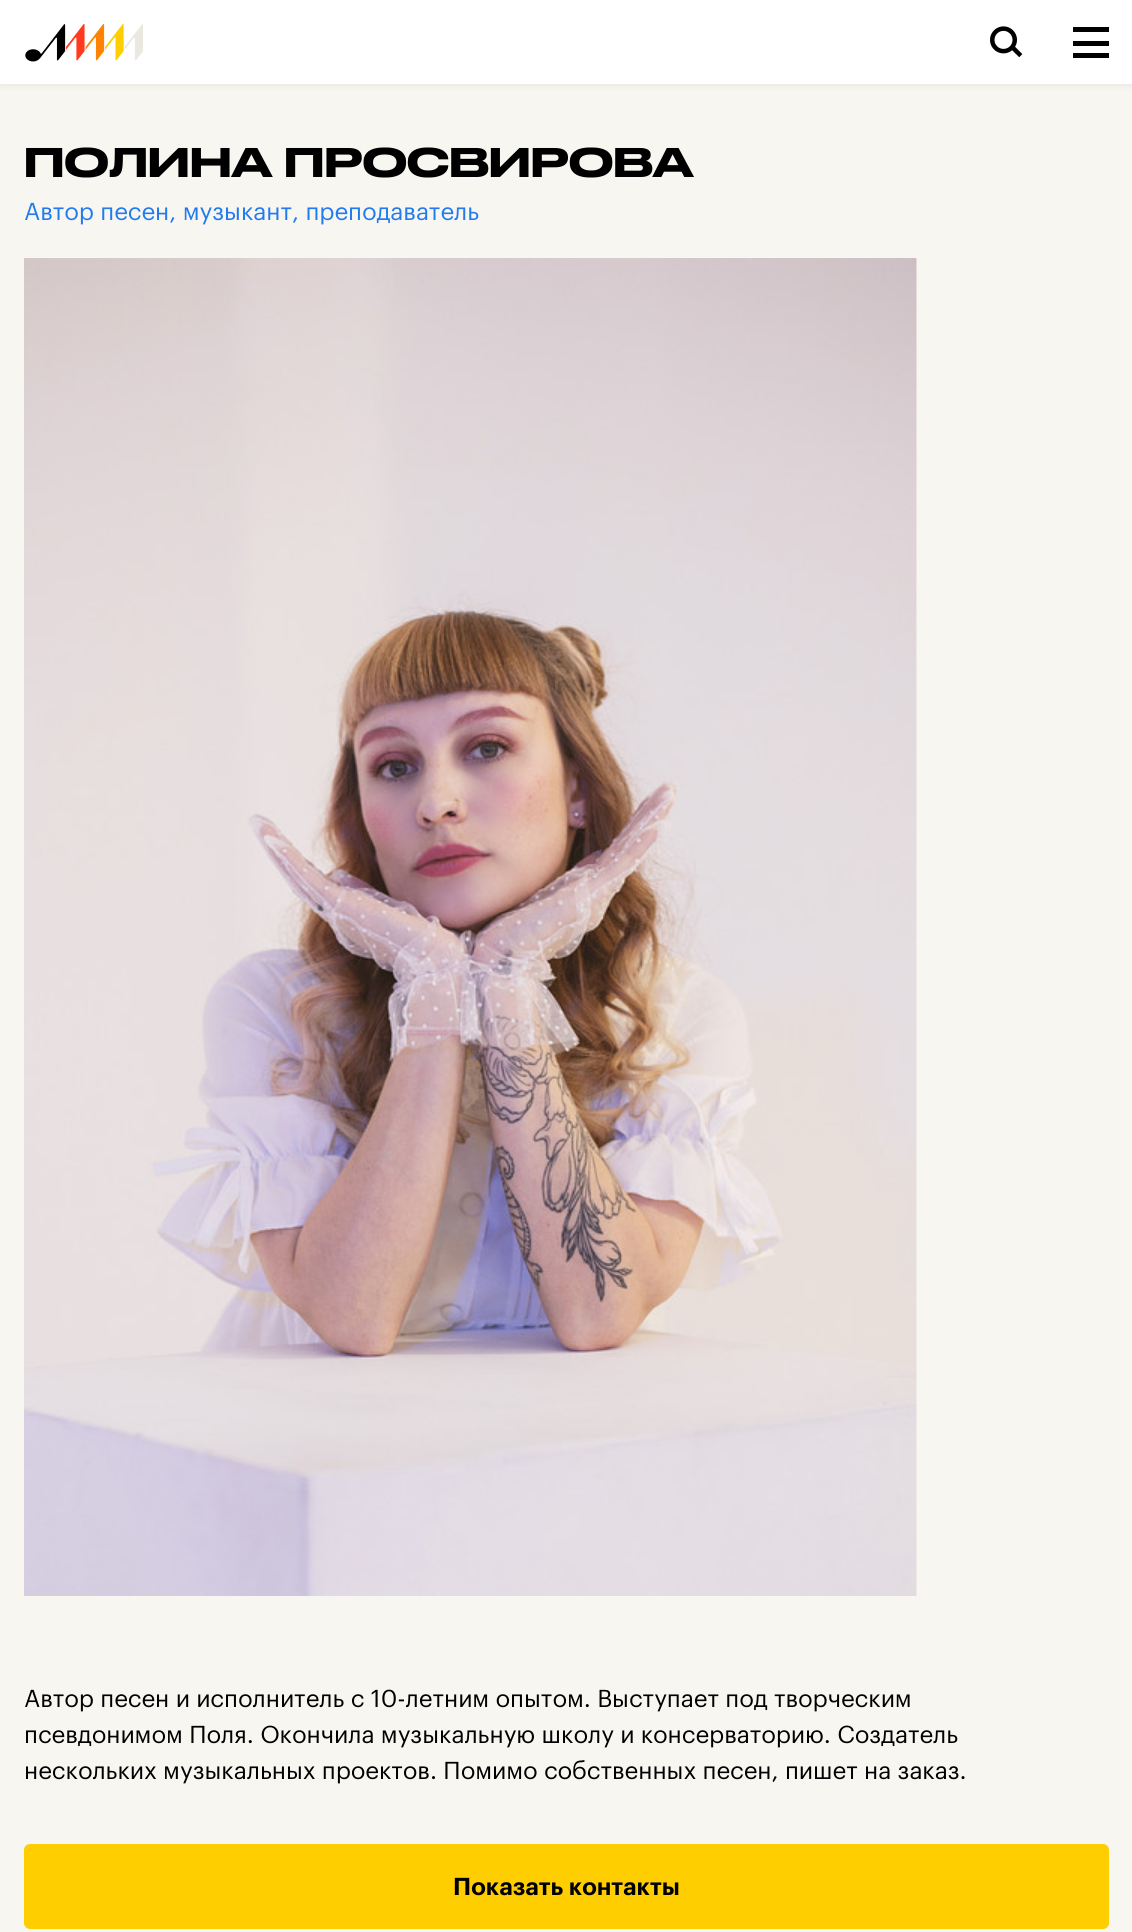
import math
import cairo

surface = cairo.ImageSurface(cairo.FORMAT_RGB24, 1132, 1932)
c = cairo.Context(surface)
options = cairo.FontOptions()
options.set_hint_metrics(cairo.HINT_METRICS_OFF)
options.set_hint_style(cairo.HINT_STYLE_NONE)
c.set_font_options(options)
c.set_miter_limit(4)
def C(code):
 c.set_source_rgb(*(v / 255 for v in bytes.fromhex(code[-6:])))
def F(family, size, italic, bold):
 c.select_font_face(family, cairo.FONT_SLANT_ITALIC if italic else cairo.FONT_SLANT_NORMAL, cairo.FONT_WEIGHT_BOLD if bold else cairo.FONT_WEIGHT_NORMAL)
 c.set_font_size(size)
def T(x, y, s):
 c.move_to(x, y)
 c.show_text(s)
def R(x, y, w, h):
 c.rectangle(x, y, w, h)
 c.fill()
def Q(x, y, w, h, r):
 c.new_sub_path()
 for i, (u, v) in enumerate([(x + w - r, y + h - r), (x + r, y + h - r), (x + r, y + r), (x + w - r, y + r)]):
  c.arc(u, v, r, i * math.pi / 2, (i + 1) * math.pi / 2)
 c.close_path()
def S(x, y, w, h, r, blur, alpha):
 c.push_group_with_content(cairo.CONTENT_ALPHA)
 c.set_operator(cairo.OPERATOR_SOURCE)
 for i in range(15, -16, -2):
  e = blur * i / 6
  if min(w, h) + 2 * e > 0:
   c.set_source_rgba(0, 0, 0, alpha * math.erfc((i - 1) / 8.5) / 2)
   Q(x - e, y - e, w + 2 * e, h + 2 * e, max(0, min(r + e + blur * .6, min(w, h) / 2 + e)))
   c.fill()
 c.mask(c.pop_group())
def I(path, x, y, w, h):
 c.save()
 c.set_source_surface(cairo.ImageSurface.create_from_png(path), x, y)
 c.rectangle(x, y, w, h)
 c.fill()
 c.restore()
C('f8f6f1')
c.paint()
C('000000')
S(0,3,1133,84,0,3,.05)
C('ffffff')
R(0,0,1132,84)
I('1.png',25,24,118,38)
I('2.png',990,26,33,32)
C('000000')
R(1073,27,36,5)
R(1073,41,36,5)
R(1073,53,36,5)
F('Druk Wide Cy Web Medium',39,0,0)
T(24,177,'ПОЛИНА ПРОСВИРОВА')
F('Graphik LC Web',24,0,0)
C('217bee')
T(24,220,'Автор песен, музыкант, преподаватель')
I('3.png',24,258,893,1338)
C('000000')
T(24,1707,'Автор песен и исполнитель с 10-летним опытом. Выступает под творческим')
T(24,1743,'псевдонимом Поля. Окончила музыкальную школу и консерваторию. Создатель')
T(24,1779,'нескольких музыкальных проектов. Помимо собственных песен, пишет на заказ.')
C('ffce00')
Q(24,1844,1085,85,6)
c.fill()
F('Graphik LC Web SemiBold',24,0,0)
C('000000')
T(453,1895,'Показать контакты')
surface.write_to_png('o.png')
